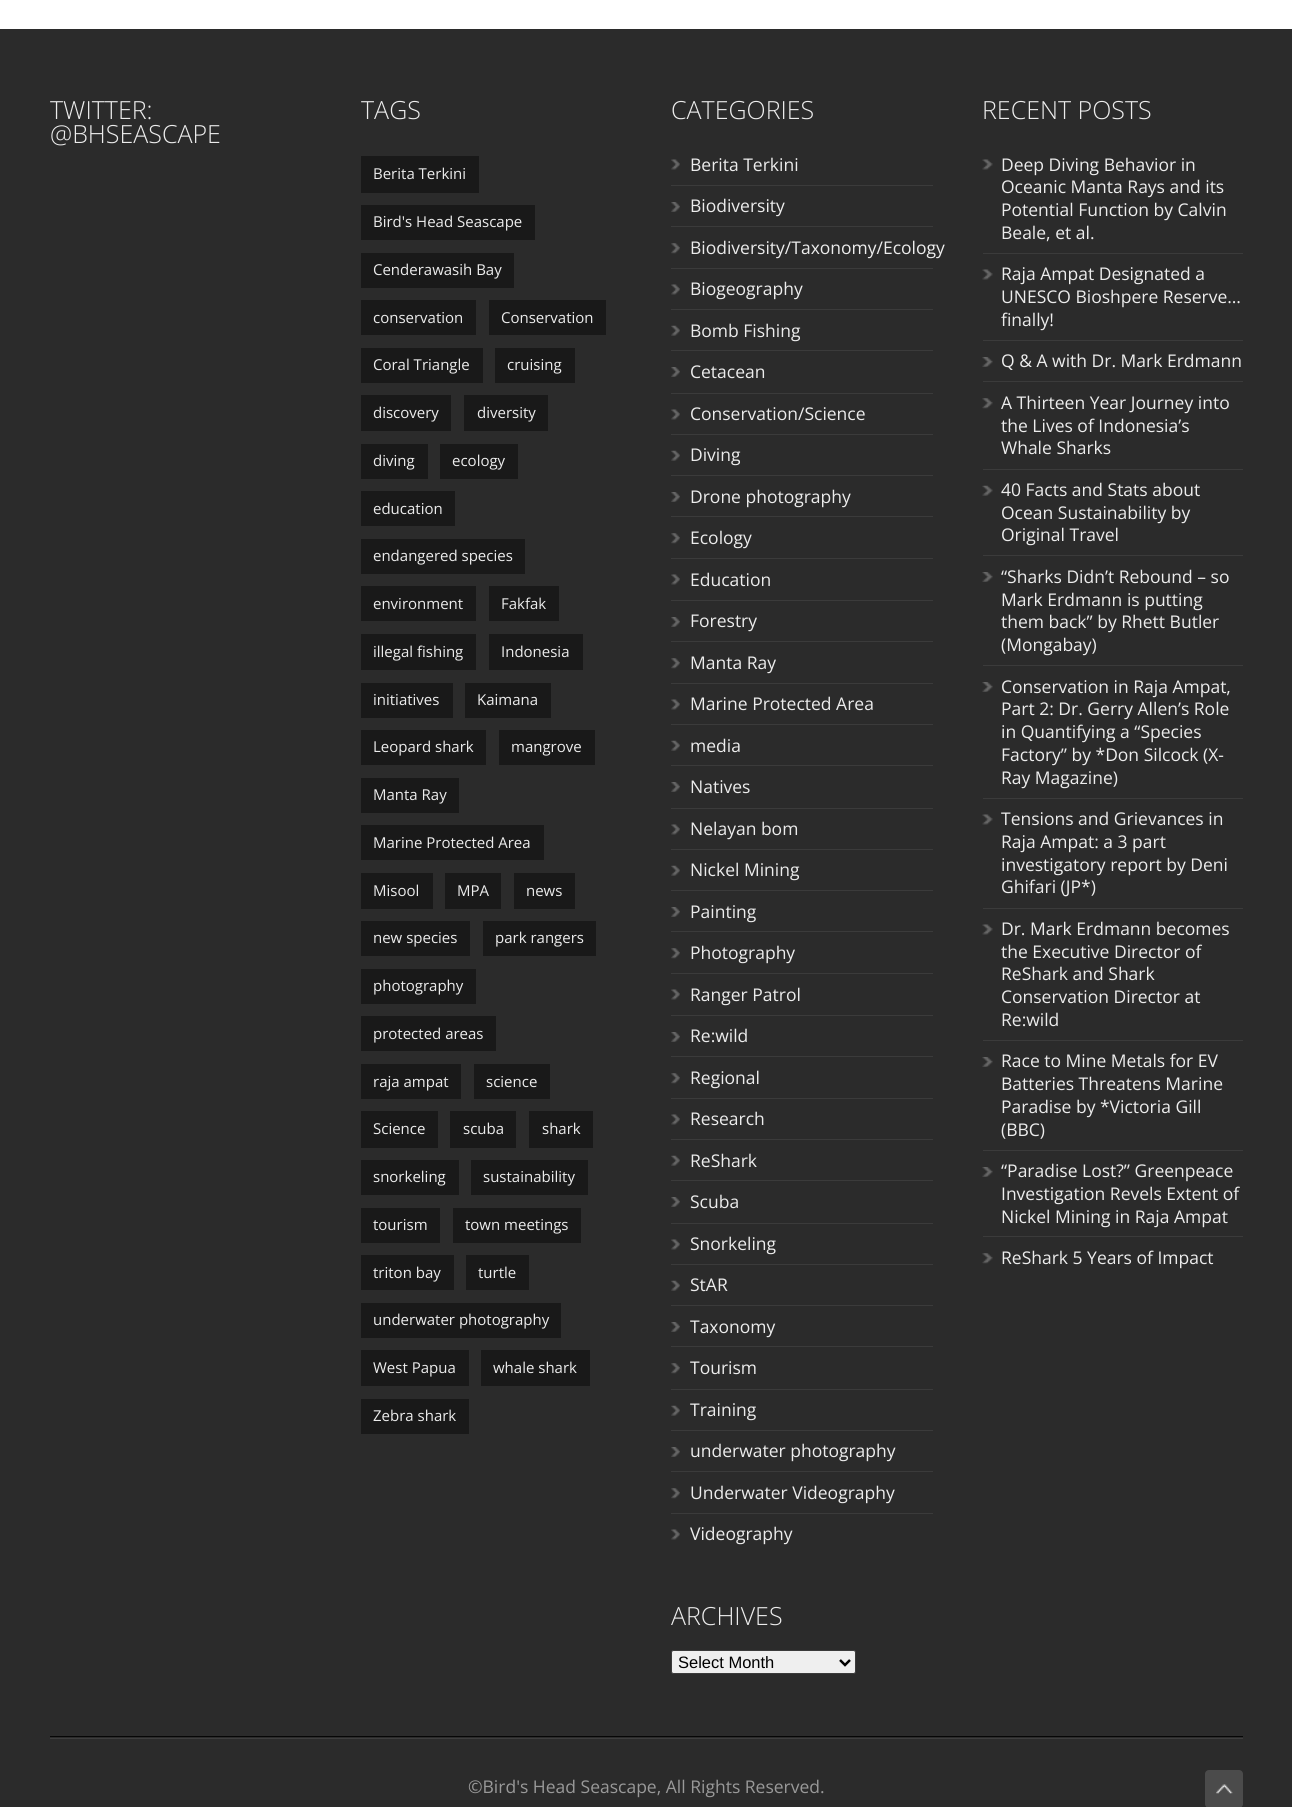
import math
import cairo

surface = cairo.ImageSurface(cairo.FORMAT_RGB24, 1292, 1807)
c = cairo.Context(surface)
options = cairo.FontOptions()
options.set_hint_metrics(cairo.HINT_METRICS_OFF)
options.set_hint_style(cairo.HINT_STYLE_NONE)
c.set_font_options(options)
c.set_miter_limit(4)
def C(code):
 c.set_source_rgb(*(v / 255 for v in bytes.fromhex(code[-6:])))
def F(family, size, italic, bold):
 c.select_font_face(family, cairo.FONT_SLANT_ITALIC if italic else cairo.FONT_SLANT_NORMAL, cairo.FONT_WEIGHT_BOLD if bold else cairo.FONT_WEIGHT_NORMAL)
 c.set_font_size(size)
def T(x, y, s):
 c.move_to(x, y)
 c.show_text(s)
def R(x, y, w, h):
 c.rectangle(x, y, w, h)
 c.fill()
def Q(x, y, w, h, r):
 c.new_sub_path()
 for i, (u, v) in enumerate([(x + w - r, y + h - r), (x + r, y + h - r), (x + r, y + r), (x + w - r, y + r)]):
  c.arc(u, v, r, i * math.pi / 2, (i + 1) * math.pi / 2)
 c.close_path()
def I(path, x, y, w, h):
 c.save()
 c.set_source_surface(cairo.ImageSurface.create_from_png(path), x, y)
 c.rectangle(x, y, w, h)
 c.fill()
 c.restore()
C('2b2b2b')
c.paint()
C('ffffff')
R(0,0,1292,29)
F('Open Sans Light',25,0,0)
C('ececec')
T(50,119,'TWITTER:')
T(50,143,'@BHSEASCAPE')
T(361,119,'TAGS')
C('191919')
R(361,156,118,37)
F('Open Sans',15,0,0)
C('ececec')
T(373,179,'Berita Terkini')
C('191919')
R(361,205,174,35)
C('ececec')
T(373,227,'Bird\'s Head Seascape')
C('191919')
R(361,253,153,35)
C('ececec')
T(373,275,'Cenderawasih Bay')
C('191919')
R(361,300,115,35)
C('ececec')
T(373,323,'conservation')
C('191919')
R(489,300,117,35)
C('ececec')
T(501,323,'Conservation')
C('191919')
R(361,348,122,35)
C('ececec')
T(373,370,'Coral Triangle')
C('191919')
R(495,348,80,35)
C('ececec')
T(507,370,'cruising')
C('191919')
R(361,395,90,36)
C('ececec')
T(373,418,'discovery')
C('191919')
R(464,395,84,36)
C('ececec')
T(477,418,'diversity')
C('191919')
R(361,444,67,35)
C('ececec')
T(373,466,'diving')
C('191919')
R(440,444,78,35)
C('ececec')
T(452,466,'ecology')
C('191919')
R(361,491,94,35)
C('ececec')
T(373,514,'education')
C('191919')
R(361,539,164,35)
C('ececec')
T(373,561,'endangered species')
C('191919')
R(361,586,115,35)
C('ececec')
T(373,609,'environment')
C('191919')
R(489,586,70,35)
C('ececec')
T(501,609,'Fakfak')
C('191919')
R(361,634,115,36)
C('ececec')
T(373,657,'illegal fishing')
C('191919')
R(489,634,94,36)
C('ececec')
T(501,657,'Indonesia')
C('191919')
R(361,683,92,35)
C('ececec')
T(373,705,'initiatives')
C('191919')
R(465,683,86,35)
C('ececec')
T(477,705,'Kaimana')
C('191919')
R(361,730,125,35)
C('ececec')
T(373,752,'Leopard shark')
C('191919')
R(499,730,96,35)
C('ececec')
T(511,752,'mangrove')
C('191919')
R(361,778,98,35)
C('ececec')
T(373,800,'Manta Ray')
C('191919')
R(361,825,183,35)
C('ececec')
T(373,848,'Marine Protected Area')
C('191919')
R(361,873,72,36)
C('ececec')
T(373,896,'Misool')
C('191919')
R(445,873,56,36)
C('ececec')
T(457,896,'MPA')
C('191919')
R(514,873,61,36)
C('ececec')
T(526,896,'news')
C('191919')
R(361,921,109,35)
C('ececec')
T(373,943,'new species')
C('191919')
R(483,921,113,35)
C('ececec')
T(495,943,'park rangers')
C('191919')
R(361,969,115,35)
C('ececec')
T(373,991,'photography')
C('191919')
R(361,1016,135,35)
C('ececec')
T(373,1039,'protected areas')
C('191919')
R(361,1064,100,35)
C('ececec')
T(373,1087,'raja ampat')
C('191919')
R(474,1064,76,35)
C('ececec')
T(486,1087,'science')
C('191919')
R(361,1111,77,37)
C('ececec')
T(373,1134,'Science')
C('191919')
R(450,1111,66,37)
C('ececec')
T(463,1134,'scuba')
C('191919')
R(529,1111,64,37)
C('ececec')
T(542,1134,'shark')
C('191919')
R(361,1160,98,35)
C('ececec')
T(373,1182,'snorkeling')
C('191919')
R(471,1160,117,35)
C('ececec')
T(483,1182,'sustainability')
C('191919')
R(361,1208,79,35)
C('ececec')
T(373,1230,'tourism')
C('191919')
R(453,1208,128,35)
C('ececec')
T(465,1230,'town meetings')
C('191919')
R(361,1255,93,35)
C('ececec')
T(373,1278,'triton bay')
C('191919')
R(466,1255,63,35)
C('ececec')
T(478,1278,'turtle')
C('191919')
R(361,1303,200,35)
C('ececec')
T(373,1325,'underwater photography')
C('191919')
R(361,1350,108,36)
C('ececec')
T(373,1373,'West Papua')
C('191919')
R(481,1350,109,36)
C('ececec')
T(493,1373,'whale shark')
C('191919')
R(361,1399,108,35)
C('ececec')
T(373,1421,'Zebra shark')
F('Open Sans Light',25,0,0)
T(671,119,'CATEGORIES')
I('1.png',671,159,9,11)
C('3b3b3b')
R(671,185,262,1)
F('Open Sans',17.5,0,0)
C('ececec')
T(690,171,'Berita Terkini')
I('2.png',671,202,9,10)
C('3b3b3b')
R(671,226,262,1)
C('ececec')
T(690,212,'Biodiversity')
I('3.png',671,243,9,11)
C('3b3b3b')
R(671,268,262,1)
C('ececec')
T(690,254,'Biodiversity/Taxonomy/Ecology')
I('1.png',671,284,9,11)
C('3b3b3b')
R(671,309,262,1)
C('ececec')
T(690,295,'Biogeography')
I('4.png',671,325,9,11)
C('3b3b3b')
R(671,350,262,1)
C('ececec')
T(690,337,'Bomb Fishing')
I('2.png',671,367,9,10)
C('3b3b3b')
R(671,393,262,1)
C('ececec')
T(690,378,'Cetacean')
I('1.png',671,409,9,11)
C('3b3b3b')
R(671,434,262,1)
C('ececec')
T(690,420,'Conservation/Science')
I('4.png',671,450,9,11)
C('3b3b3b')
R(671,475,262,1)
C('ececec')
T(690,461,'Diving')
I('2.png',671,492,9,10)
C('3b3b3b')
R(671,516,262,1)
C('ececec')
T(690,503,'Drone photography')
I('3.png',671,533,9,11)
C('3b3b3b')
R(671,558,262,1)
C('ececec')
T(690,544,'Ecology')
I('1.png',671,574,9,11)
C('3b3b3b')
R(671,600,262,1)
C('ececec')
T(690,586,'Education')
I('2.png',671,617,9,10)
C('3b3b3b')
R(671,641,262,1)
C('ececec')
T(690,627,'Forestry')
I('3.png',671,658,9,11)
C('3b3b3b')
R(671,683,262,1)
C('ececec')
T(690,669,'Manta Ray')
I('1.png',671,699,9,11)
C('3b3b3b')
R(671,724,262,1)
C('ececec')
T(690,710,'Marine Protected Area')
I('4.png',671,740,9,11)
C('3b3b3b')
R(671,765,262,1)
C('ececec')
T(690,752,'media')
I('2.png',671,782,9,10)
C('3b3b3b')
R(671,808,262,1)
C('ececec')
T(690,793,'Natives')
I('1.png',671,824,9,11)
C('3b3b3b')
R(671,849,262,1)
C('ececec')
T(690,835,'Nelayan bom')
I('4.png',671,865,9,11)
C('3b3b3b')
R(671,890,262,1)
C('ececec')
T(690,876,'Nickel Mining')
I('2.png',671,907,9,10)
C('3b3b3b')
R(671,931,262,1)
C('ececec')
T(690,918,'Painting')
I('3.png',671,948,9,11)
C('3b3b3b')
R(671,973,262,1)
C('ececec')
T(690,959,'Photography')
I('1.png',671,989,9,11)
C('3b3b3b')
R(671,1015,262,1)
C('ececec')
T(690,1001,'Ranger Patrol')
I('2.png',671,1032,9,10)
C('3b3b3b')
R(671,1056,262,1)
C('ececec')
T(690,1042,'Re:wild')
I('3.png',671,1073,9,11)
C('3b3b3b')
R(671,1098,262,1)
C('ececec')
T(690,1084,'Regional')
I('1.png',671,1114,9,11)
C('3b3b3b')
R(671,1139,262,1)
C('ececec')
T(690,1125,'Research')
I('4.png',671,1155,9,11)
C('3b3b3b')
R(671,1180,262,1)
C('ececec')
T(690,1167,'ReShark')
I('2.png',671,1197,9,10)
C('3b3b3b')
R(671,1223,262,1)
C('ececec')
T(690,1208,'Scuba')
I('1.png',671,1239,9,11)
C('3b3b3b')
R(671,1264,262,1)
C('ececec')
T(690,1250,'Snorkeling')
I('4.png',671,1280,9,11)
C('3b3b3b')
R(671,1305,262,1)
C('ececec')
T(690,1291,'StAR')
I('2.png',671,1322,9,10)
C('3b3b3b')
R(671,1346,262,1)
C('ececec')
T(690,1333,'Taxonomy')
I('3.png',671,1363,9,11)
C('3b3b3b')
R(671,1389,262,1)
C('ececec')
T(690,1374,'Tourism')
I('4.png',671,1405,9,11)
C('3b3b3b')
R(671,1430,262,1)
C('ececec')
T(690,1416,'Training')
I('2.png',671,1447,9,10)
C('3b3b3b')
R(671,1471,262,1)
C('ececec')
T(690,1457,'underwater photography')
I('3.png',671,1488,9,11)
C('3b3b3b')
R(671,1513,262,1)
C('ececec')
T(690,1499,'Underwater Videography')
I('1.png',671,1529,9,11)
T(690,1540,'Videography')
F('Open Sans Light',25,0,0)
T(671,1625,'ARCHIVES')
C('efefef')
Q(671.5,1650.5,184,23,2)
c.fill_preserve()
C('3b3b3b')
c.set_line_width(1)
c.stroke()
c.new_path()
c.move_to(840,1660)
c.line_to(845,1665)
c.line_to(850,1660)
C('000000')
c.set_line_width(2.5)
c.stroke()
F('Liberation Sans',16.5,0,0)
T(678,1668,'Select Month')
F('Open Sans Light',25,0,0)
C('ececec')
T(982,119,'RECENT POSTS')
I('5.png',982,159,11,11)
C('3b3b3b')
R(983,253,260,1)
F('Open Sans',17.5,0,0)
C('ececec')
T(1001,171,'Deep Diving Behavior in')
T(1001,193,'Oceanic Manta Rays and its')
T(1001,216,'Potential Function by Calvin')
T(1001,239,'Beale, et al.')
I('5.png',982,269,11,11)
C('3b3b3b')
R(983,340,260,1)
C('ececec')
T(1001,280,'Raja Ampat Designated a')
T(1001,303,'UNESCO Bioshpere Reserve…')
T(1001,326,'finally!')
I('6.png',982,357,11,10)
C('3b3b3b')
R(983,381,260,1)
C('ececec')
T(1001,367,'Q & A with Dr. Mark Erdmann')
I('7.png',982,398,11,11)
C('3b3b3b')
R(983,469,260,1)
C('ececec')
T(1001,409,'A Thirteen Year Journey into')
T(1001,432,'the Lives of Indonesia’s')
T(1001,454,'Whale Sharks')
I('8.png',982,485,11,11)
C('3b3b3b')
R(983,555,260,1)
C('ececec')
T(1001,496,'40 Facts and Stats about')
T(1001,519,'Ocean Sustainability by')
T(1001,541,'Original Travel')
I('6.png',982,572,11,10)
C('3b3b3b')
R(983,665,260,1)
C('ececec')
T(1001,583,'“Sharks Didn’t Rebound – so')
T(1001,606,'Mark Erdmann is putting')
T(1001,628,'them back” by Rhett Butler')
T(1001,651,'(Mongabay)')
I('6.png',982,682,11,10)
C('3b3b3b')
R(983,798,260,1)
C('ececec')
T(1001,693,'Conservation in Raja Ampat,')
T(1001,715,'Part 2: Dr. Gerry Allen’s Role')
T(1001,738,'in Quantifying a “Species')
T(1001,761,'Factory” by *Don Silcock (X-')
T(1001,784,'Ray Magazine)')
I('5.png',982,814,11,11)
C('3b3b3b')
R(983,908,260,1)
C('ececec')
T(1001,825,'Tensions and Grievances in')
T(1001,848,'Raja Ampat: a 3 part')
T(1001,871,'investigatory report by Deni')
T(1001,893,'Ghifari (JP*)')
I('5.png',982,924,11,11)
C('3b3b3b')
R(983,1040,260,1)
C('ececec')
T(1001,935,'Dr. Mark Erdmann becomes')
T(1001,958,'the Executive Director of')
T(1001,980,'ReShark and Shark')
T(1001,1003,'Conservation Director at')
T(1001,1026,'Re:wild')
I('6.png',982,1057,11,10)
C('3b3b3b')
R(983,1150,260,1)
C('ececec')
T(1001,1067,'Race to Mine Metals for EV')
T(1001,1090,'Batteries Threatens Marine')
T(1001,1113,'Paradise by *Victoria Gill')
T(1001,1136,'(BBC)')
I('9.png',982,1167,11,10)
C('3b3b3b')
R(983,1236,260,1)
C('ececec')
T(1001,1177,'“Paradise Lost?” Greenpeace')
T(1001,1200,'Investigation Revels Extent of')
T(1001,1223,'Nickel Mining in Raja Ampat')
I('7.png',982,1253,11,11)
T(1001,1264,'ReShark 5 Years of Impact')
C('060606')
R(50,1736,1193,1)
C('3e3e3e')
R(50,1738,1193,1)
C('999999')
T(468,1793,'©Bird\'s Head Seascape, All Rights Reserved.')
C('4b4b4b')
Q(1205,1770,38,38,4)
c.fill()
I('10.png',1216,1784,17,10)
surface.write_to_png('o.png')
